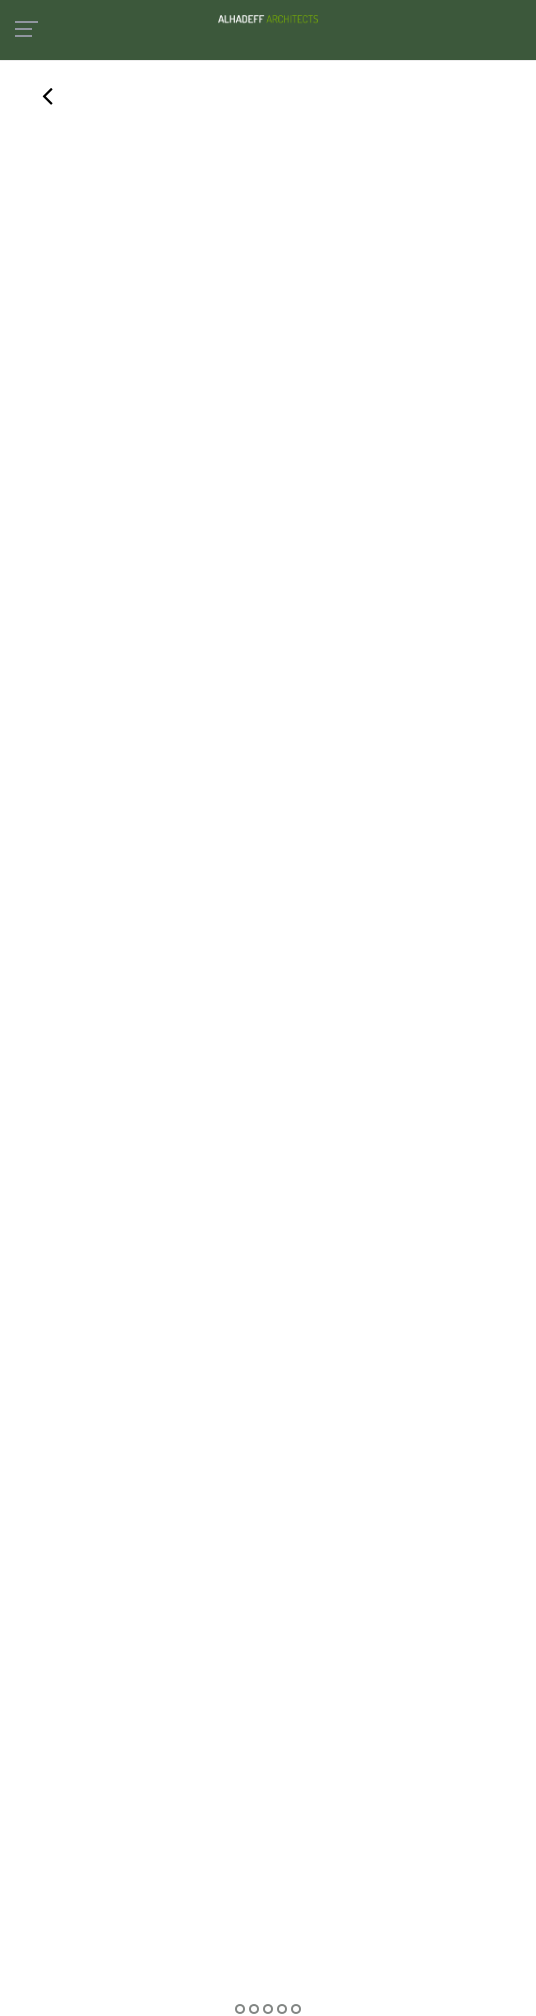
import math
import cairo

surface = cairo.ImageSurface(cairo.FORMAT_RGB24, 536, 2016)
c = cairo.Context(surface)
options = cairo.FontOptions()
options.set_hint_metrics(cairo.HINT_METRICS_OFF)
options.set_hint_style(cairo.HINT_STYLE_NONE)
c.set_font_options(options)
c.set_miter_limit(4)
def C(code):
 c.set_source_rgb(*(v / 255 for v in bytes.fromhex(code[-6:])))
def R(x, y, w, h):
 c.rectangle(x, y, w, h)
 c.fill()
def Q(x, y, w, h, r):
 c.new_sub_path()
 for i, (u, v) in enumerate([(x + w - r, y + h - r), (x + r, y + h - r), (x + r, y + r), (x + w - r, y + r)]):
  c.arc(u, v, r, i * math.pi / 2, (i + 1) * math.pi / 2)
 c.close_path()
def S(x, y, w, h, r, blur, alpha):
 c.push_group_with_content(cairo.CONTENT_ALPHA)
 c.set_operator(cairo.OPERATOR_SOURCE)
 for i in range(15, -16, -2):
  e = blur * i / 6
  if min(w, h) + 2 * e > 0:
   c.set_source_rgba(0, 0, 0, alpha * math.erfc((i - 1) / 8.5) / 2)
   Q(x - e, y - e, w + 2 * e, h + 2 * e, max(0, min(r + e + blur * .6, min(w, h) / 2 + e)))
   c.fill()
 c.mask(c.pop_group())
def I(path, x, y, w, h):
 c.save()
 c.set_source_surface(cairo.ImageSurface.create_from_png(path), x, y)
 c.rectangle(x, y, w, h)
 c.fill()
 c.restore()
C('ffffff')
c.paint()
C('000000')
S(0,0,536,60,0,.5,.3)
C('3c583b')
R(0,0,536,60)
I('1.png',218,15,100,9)
C('9196a0')
R(15,28,17,2)
R(15,21,23,2)
R(15,35,17,2)
I('2.png',42,88,11,17)
c.arc(240,2009,4,0,2 * math.pi)
C('828684')
c.stroke()
c.arc(254,2009,4,0,2 * math.pi)
c.stroke()
c.arc(268,2009,4,0,2 * math.pi)
c.stroke()
c.arc(282,2009,4,0,2 * math.pi)
c.stroke()
c.arc(296,2009,4,0,2 * math.pi)
c.stroke()
surface.write_to_png('o.png')
